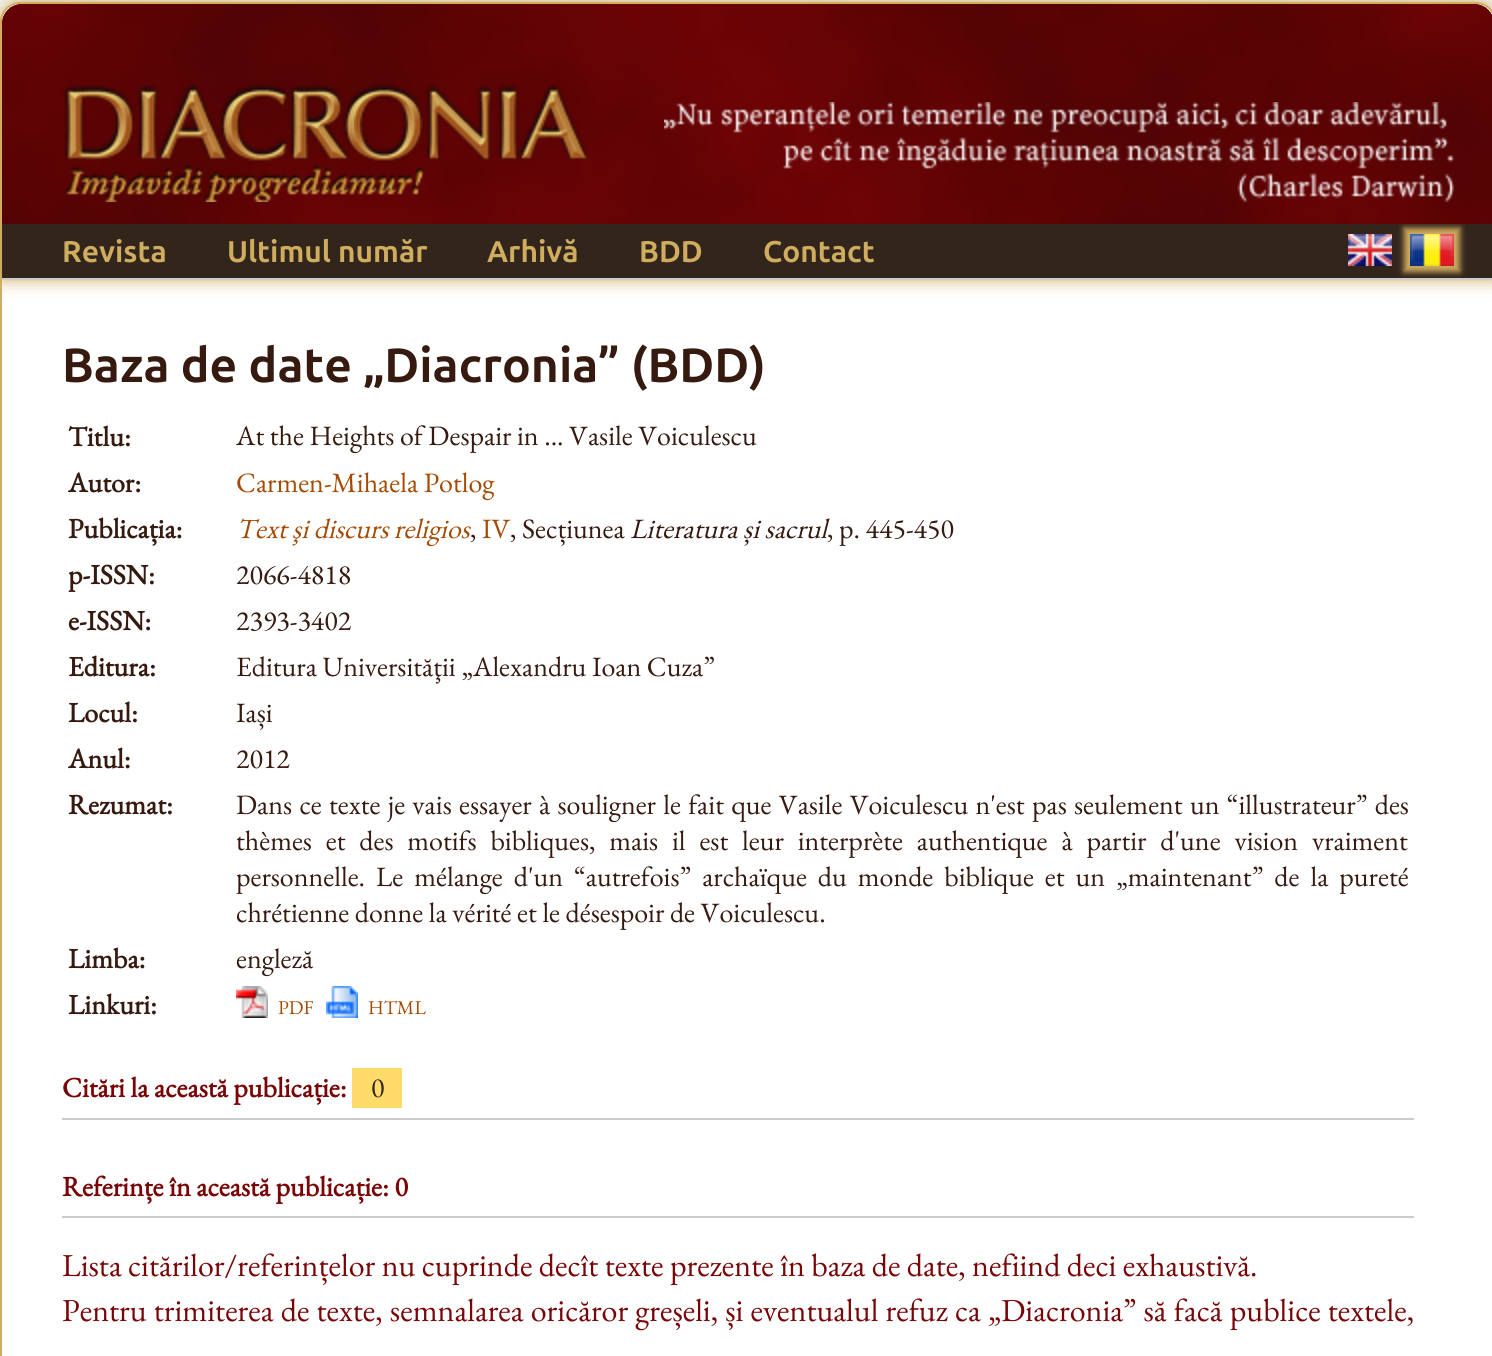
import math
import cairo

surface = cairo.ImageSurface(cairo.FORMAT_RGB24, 1492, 1356)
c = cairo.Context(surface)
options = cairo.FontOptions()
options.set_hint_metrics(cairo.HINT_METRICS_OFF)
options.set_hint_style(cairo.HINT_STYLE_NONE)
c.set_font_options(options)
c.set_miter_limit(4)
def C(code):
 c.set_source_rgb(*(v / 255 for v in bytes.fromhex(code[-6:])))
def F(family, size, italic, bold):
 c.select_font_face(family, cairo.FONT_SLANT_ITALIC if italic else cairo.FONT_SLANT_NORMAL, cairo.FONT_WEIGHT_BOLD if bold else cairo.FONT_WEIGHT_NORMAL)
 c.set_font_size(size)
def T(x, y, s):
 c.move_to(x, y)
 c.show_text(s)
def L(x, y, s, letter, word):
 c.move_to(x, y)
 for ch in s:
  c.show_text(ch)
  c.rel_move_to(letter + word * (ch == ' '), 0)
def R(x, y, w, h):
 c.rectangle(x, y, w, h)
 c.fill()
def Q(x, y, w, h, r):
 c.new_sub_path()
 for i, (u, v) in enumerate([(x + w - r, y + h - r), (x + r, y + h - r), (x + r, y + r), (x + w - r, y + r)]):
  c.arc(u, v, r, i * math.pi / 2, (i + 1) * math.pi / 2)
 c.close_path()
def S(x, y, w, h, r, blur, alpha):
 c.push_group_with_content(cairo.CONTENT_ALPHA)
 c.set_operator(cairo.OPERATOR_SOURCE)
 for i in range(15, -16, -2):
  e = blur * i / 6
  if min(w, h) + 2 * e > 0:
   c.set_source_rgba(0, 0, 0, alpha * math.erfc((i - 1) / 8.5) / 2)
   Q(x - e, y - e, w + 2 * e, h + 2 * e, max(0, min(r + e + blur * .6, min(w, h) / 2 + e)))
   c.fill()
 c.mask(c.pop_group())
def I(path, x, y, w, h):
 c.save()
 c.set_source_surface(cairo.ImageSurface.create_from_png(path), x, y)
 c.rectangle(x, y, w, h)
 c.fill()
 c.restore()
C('f2f2ee')
c.paint()
C('d0ac5f')
S(0,2,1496,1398,20,8,1)
C('ffffff')
c.new_path()
c.move_to(20,3)
c.line_to(1476,3)
c.curve_to(1486.5,3,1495,11.5,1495,22)
c.line_to(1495,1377)
c.line_to(1,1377)
c.line_to(1,22)
c.curve_to(1,11.5,9.5,3,20,3)
c.close_path()
c.fill_preserve()
C('d0ac5f')
c.stroke()
C('d0ac5f')
S(2,224,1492,56,0,8,1)
C('32251c')
R(2,224,1490,54)
C('cccccc')
R(2,278,1490,2)
C('d0ac5f')
S(1404,228,56,44,0,3,1)
C('600305')
c.new_path()
c.move_to(22,4)
c.line_to(1474,4)
c.curve_to(1485,4,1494,13,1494,24)
c.line_to(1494,224)
c.line_to(2,224)
c.line_to(2,24)
c.curve_to(2,13,11,4,22,4)
c.close_path()
c.fill()
I('1.png',2,4,1490,220)
I('2.png',63,83,525,119)
I('3.png',664,102,790,100)
F('Ubuntu',30,0,1)
C('d0ac5f')
T(62,262,'Revista')
T(227,262,'Ultimul număr')
T(487,262,'Arhivă')
T(639,262,'BDD')
T(763,262,'Contact')
I('4.png',1348,234,44,32)
I('5.png',1410,234,44,32)
F('Ubuntu',48,0,1)
C('361a0f')
T(62,382,'Baza de date „Diacronia” (BDD)')
F('EB Garamond',28,0,1)
T(68,446,'Titlu:')
F('EB Garamond',28,0,0)
T(236,445,'At the Heights of Despair in ... Vasile Voiculescu')
F('EB Garamond',28,0,1)
T(68,492,'Autor:')
F('EB Garamond',28,0,0)
C('a64902')
T(236,492,'Carmen-Mihaela Potlog')
F('EB Garamond',28,0,1)
C('361a0f')
T(68,538,'Publicația:')
F('EB Garamond',28,1,0)
C('a64902')
T(236,538,'Text şi discurs religios')
F('EB Garamond',28,0,0)
C('361a0f')
T(470,538,',')
C('a64902')
T(482,538,'IV')
C('361a0f')
T(510,538,', Secțiunea')
F('EB Garamond',28,1,0)
T(630,538,'Literatura și sacrul')
F('EB Garamond',28,0,0)
T(827,538,', p. 445-450')
F('EB Garamond',28,0,1)
T(68,584,'p-ISSN:')
F('EB Garamond',28,0,0)
T(236,584,'2066-4818')
F('EB Garamond',28,0,1)
T(68,630,'e-ISSN:')
F('EB Garamond',28,0,0)
T(236,630,'2393-3402')
F('EB Garamond',28,0,1)
T(68,676,'Editura:')
F('EB Garamond',28,0,0)
T(236,676,'Editura Universităţii „Alexandru Ioan Cuza”')
F('EB Garamond',28,0,1)
T(68,722,'Locul:')
F('EB Garamond',28,0,0)
T(236,722,'Iași')
F('EB Garamond',28,0,1)
T(68,768,'Anul:')
F('EB Garamond',28,0,0)
T(236,768,'2012')
F('EB Garamond',28,0,1)
T(68,814,'Rezumat:')
F('EB Garamond',28,0,0)
L(236,814,'Dans ce texte je vais essayer à souligner le fait que Vasile Voiculescu n\'est pas seulement un “illustrateur” des',0,1.7)
L(236,850,'thèmes et des motifs bibliques, mais il est leur interprète authentique à partir d\'une vision vraiment',0,8.25)
L(236,886,'personnelle. Le mélange d\'un “autrefois” archaïque du monde biblique et un „maintenant” de la pureté',0,5.4)
T(236,922,'chrétienne donne la vérité et le désespoir de Voiculescu.')
F('EB Garamond',28,0,1)
T(68,968,'Limba:')
F('EB Garamond',28,0,0)
T(236,968,'engleză')
F('EB Garamond',28,0,1)
T(68,1014,'Linkuri:')
I('6.png',236,986,32,32)
F('EB Garamond',19.5,0,0)
C('a64902')
T(278,1014,'PDF')
I('7.png',326,986,32,32)
T(368,1014,'HTML')
F('EB Garamond',28,0,1)
C('780406')
T(62,1097,'Citări la această publicație:')
C('ffdc69')
R(352,1068,50,40)
F('EB Garamond',28,0,0)
C('32251c')
T(371,1097,'0')
C('cccccc')
R(62,1118,1352,2)
F('EB Garamond',28,0,1)
C('780406')
T(62,1196,'Referințe în această publicație: 0')
C('cccccc')
R(62,1216,1352,2)
F('EB Garamond',32,0,0)
C('780406')
T(62,1276,'Lista citărilor/referințelor nu cuprinde decît texte prezente în baza de date, nefiind deci exhaustivă.')
L(62,1321,'Pentru trimiterea de texte, semnalarea oricăror greșeli, și eventualul refuz ca „Diacronia” să facă publice textele,',0,.75)
surface.write_to_png('o.png')
